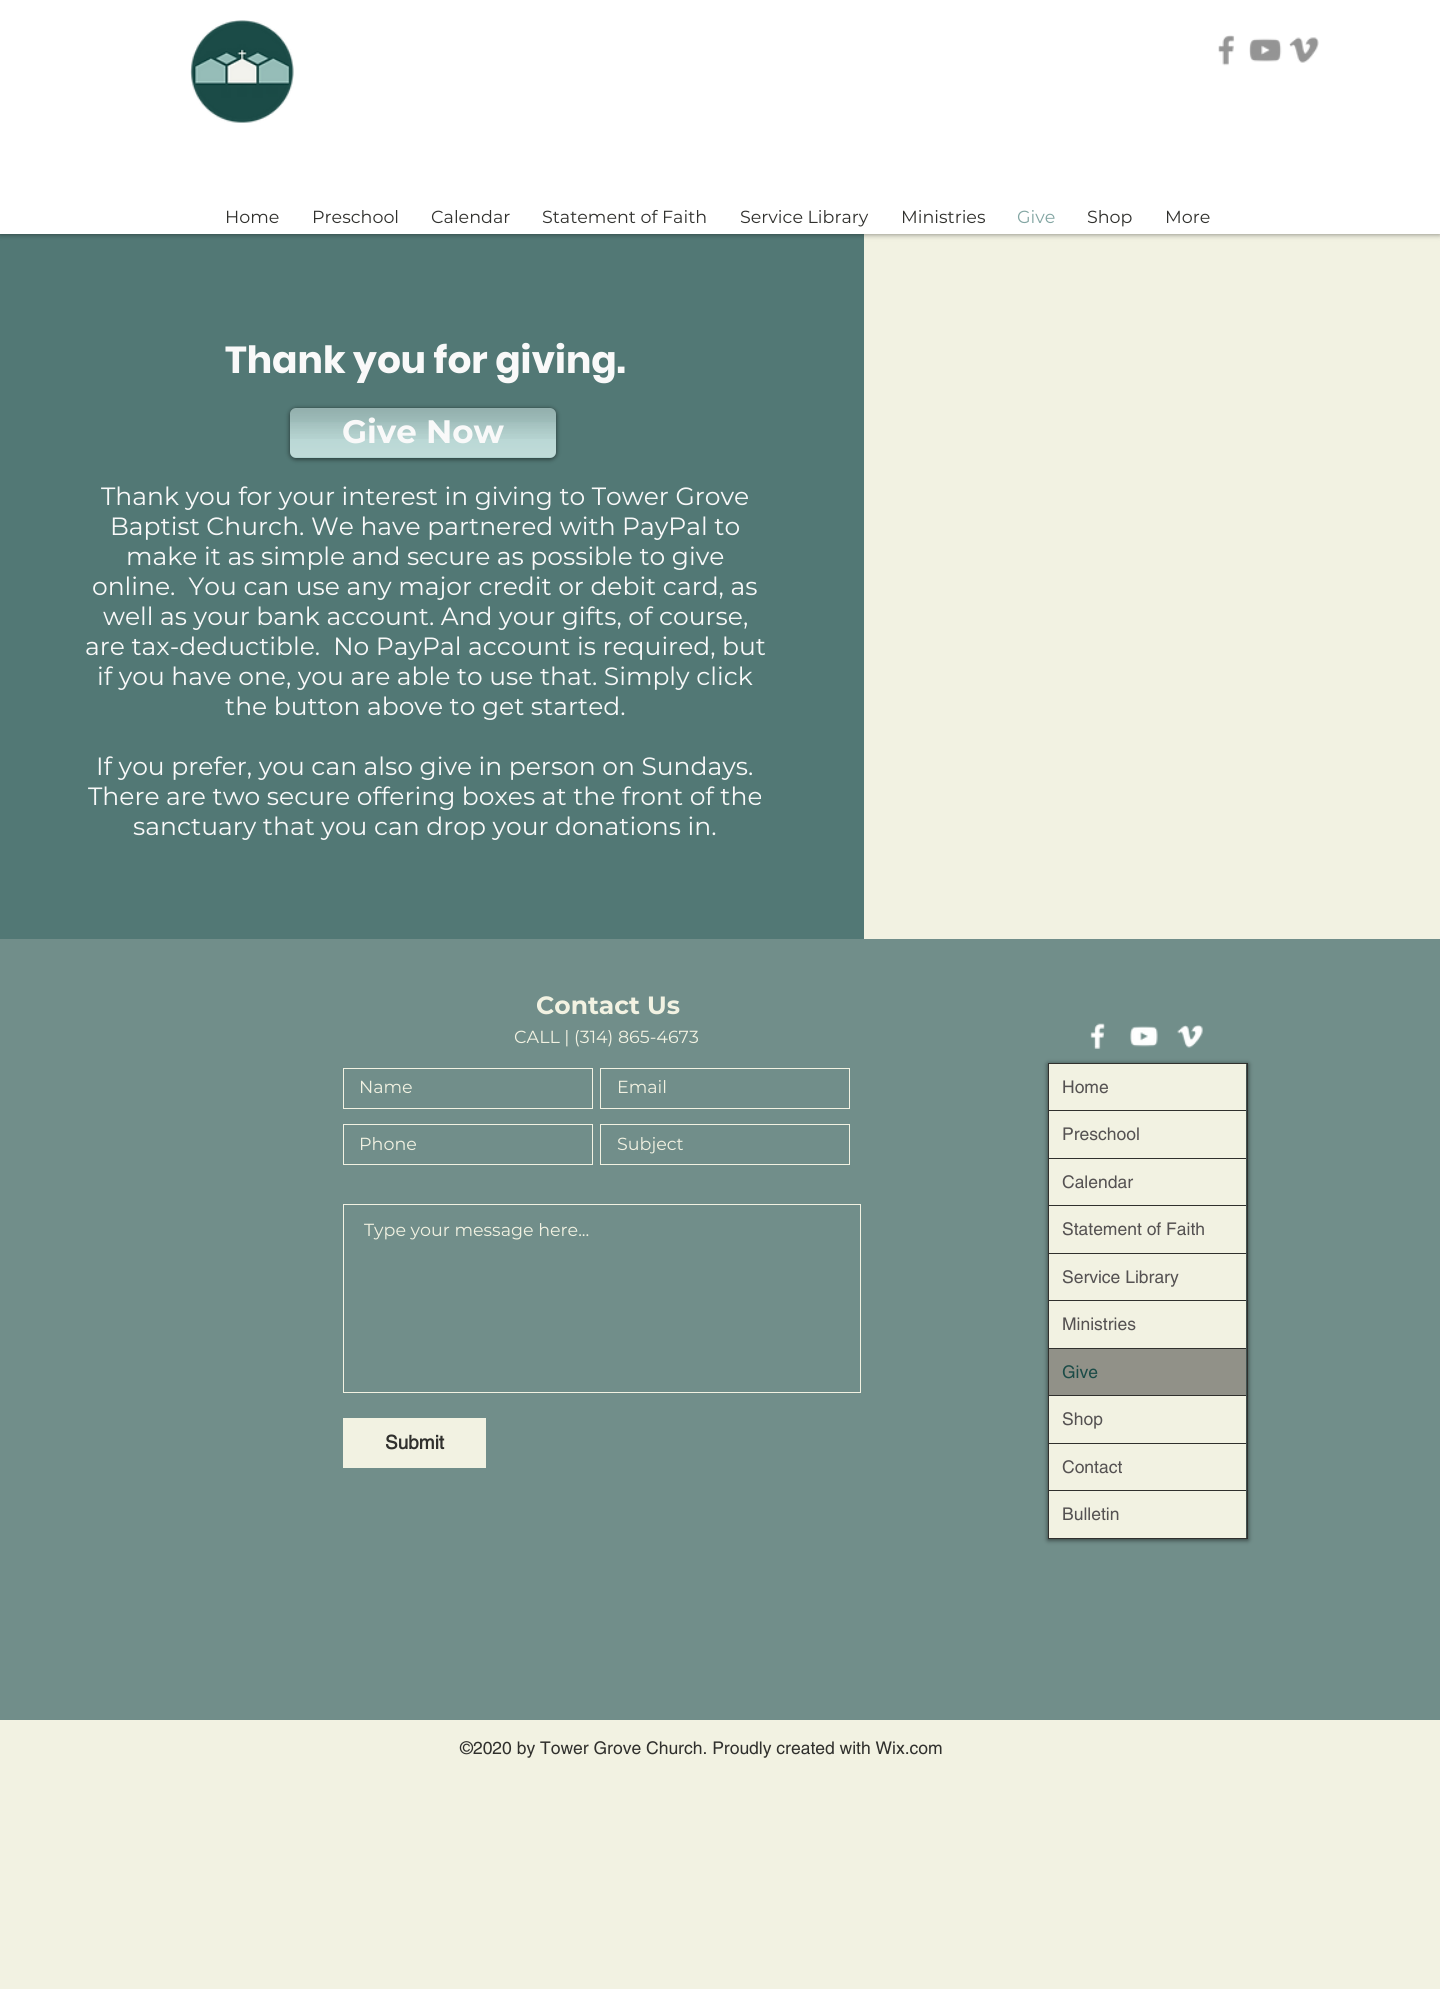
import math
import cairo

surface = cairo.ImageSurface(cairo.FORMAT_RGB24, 1440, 1989)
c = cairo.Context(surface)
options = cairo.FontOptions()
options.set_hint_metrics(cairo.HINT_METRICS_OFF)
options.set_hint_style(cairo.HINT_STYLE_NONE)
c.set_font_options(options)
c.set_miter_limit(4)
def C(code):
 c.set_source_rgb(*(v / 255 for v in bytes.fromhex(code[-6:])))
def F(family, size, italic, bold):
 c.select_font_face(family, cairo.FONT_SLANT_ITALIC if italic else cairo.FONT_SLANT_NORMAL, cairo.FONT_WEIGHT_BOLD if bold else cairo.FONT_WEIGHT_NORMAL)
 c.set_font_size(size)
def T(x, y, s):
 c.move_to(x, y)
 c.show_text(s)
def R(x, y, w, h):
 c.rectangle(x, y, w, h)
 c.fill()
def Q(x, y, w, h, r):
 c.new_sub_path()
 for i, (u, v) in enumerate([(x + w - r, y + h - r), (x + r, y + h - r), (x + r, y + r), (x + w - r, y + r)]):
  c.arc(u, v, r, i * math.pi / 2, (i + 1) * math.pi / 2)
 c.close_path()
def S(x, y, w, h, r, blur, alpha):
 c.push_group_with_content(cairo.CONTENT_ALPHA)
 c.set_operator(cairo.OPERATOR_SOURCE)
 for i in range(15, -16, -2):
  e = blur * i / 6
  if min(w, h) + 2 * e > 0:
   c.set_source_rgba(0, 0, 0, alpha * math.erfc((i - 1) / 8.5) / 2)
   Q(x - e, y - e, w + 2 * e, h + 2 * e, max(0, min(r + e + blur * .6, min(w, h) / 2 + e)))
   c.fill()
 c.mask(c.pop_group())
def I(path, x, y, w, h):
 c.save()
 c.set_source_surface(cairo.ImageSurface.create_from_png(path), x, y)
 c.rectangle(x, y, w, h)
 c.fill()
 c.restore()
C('f2f2e2')
c.paint()
C('527875')
R(0,234,864,705)
C('000000')
S(0,0,1440,234,0,3,.5)
C('ffffff')
R(0,0,1440,234)
I('1.png',190,20,104,103)
I('2.png',1218,35,17,31)
I('3.png',1249,38,33,24)
I('4.png',1289,37,30,26)
F('Montserrat',17.5,0,0)
C('30302d')
T(225,223,'Home')
T(312,223,'Preschool')
T(431,223,'Calendar')
T(542,223,'Statement of Faith')
T(740,223,'Service Library')
T(901,223,'Ministries')
C('82a5a2')
T(1017,223,'Give')
C('30302d')
T(1087,223,'Shop')
T(1165,223,'More')
F('Poppins',37.5,0,1)
C('f9f9f9')
T(225,373,'Thank you for giving.')
C('000000')
S(290,409,266,50,6,2.5,.6)
C('b0d2cf')
Q(290,408,266,50,6)
c.fill()
I('5.png',290,407,266,32)
I('6.png',290,422,266,35)
F('Montserrat',32.5,0,1)
C('f9f9f9')
T(342,443,'Give Now')
F('Montserrat',25,0,0)
T(101,505,'Thank you for your interest in giving to Tower Grove')
T(110,535,'Baptist Church. We have partnered with PayPal to')
T(126,565,'make it as simple and secure as possible to give')
T(92,595,'online.  You can use any major credit or debit card, as')
T(103,625,'well as your bank account. And your gifts, of course,')
T(85,655,'are tax-deductible.  No PayPal account is required, but')
T(97,685,'if you have one, you are able to use that. Simply click')
T(225,715,'the button above to get started.')
T(96,775,'If you prefer, you can also give in person on Sundays.')
T(88,805,'There are two secure offering boxes at the front of the')
T(133,835,'sanctuary that you can drop your donations in.')
C('718e8a')
R(0,939,1440,781)
F('Montserrat',25,0,1)
C('f2f2e2')
T(536,1014,'Contact Us')
F('Montserrat',17.5,0,0)
T(514,1043,'CALL | (314) 865-4673')
c.rectangle(343.5,1068.5,249,40)
c.set_line_width(1)
c.stroke()
T(359,1093,'Name')
c.rectangle(600.5,1068.5,249,40)
c.stroke()
T(617,1093,'Email')
c.rectangle(343.5,1124.5,249,40)
c.stroke()
T(359,1150,'Phone')
c.rectangle(600.5,1124.5,249,40)
c.stroke()
T(617,1150,'Subject')
c.rectangle(343.5,1204.5,517,188)
c.stroke()
T(364,1236,'Type your message here...')
R(343,1418,143,50)
F('helvetica',19,0,1)
C('30302d')
T(385,1449,'Submit')
I('7.png',1090,1023,15,26)
I('8.png',1130,1026,28,21)
I('9.png',1177,1025,26,23)
C('000000')
S(1048,1064,200,476,0,2.5,.6)
c.rectangle(1048.5,1063.5,199,475)
C('30302d')
c.stroke()
R(1049,1110,197,1)
C('f2f2e2')
R(1049,1064,197,46)
F('helvetica',17.5,0,0)
C('555252')
T(1062,1093,'Home')
C('30302d')
R(1049,1158,197,1)
C('f2f2e2')
R(1049,1111,197,47)
C('555252')
T(1062,1140,'Preschool')
C('30302d')
R(1049,1205,197,1)
C('f2f2e2')
R(1049,1159,197,46)
C('555252')
T(1062,1188,'Calendar')
C('30302d')
R(1049,1253,197,1)
C('f2f2e2')
R(1049,1206,197,47)
C('555252')
T(1062,1235,'Statement of Faith')
C('30302d')
R(1049,1300,197,1)
C('f2f2e2')
R(1049,1254,197,46)
C('555252')
T(1062,1283,'Service Library')
C('30302d')
R(1049,1348,197,1)
C('f2f2e2')
R(1049,1301,197,47)
C('555252')
T(1062,1330,'Ministries')
C('30302d')
R(1049,1395,197,1)
C('919188')
R(1049,1349,197,46)
C('1b4b47')
T(1062,1378,'Give')
C('30302d')
R(1049,1443,197,1)
C('f2f2e2')
R(1049,1396,197,47)
C('555252')
T(1062,1425,'Shop')
C('30302d')
R(1049,1490,197,1)
C('f2f2e2')
R(1049,1444,197,46)
C('555252')
T(1062,1473,'Contact')
C('f2f2e2')
R(1049,1491,197,47)
C('555252')
T(1062,1520,'Bulletin')
C('30302d')
T(460,1754,'©2020 by Tower Grove Church. Proudly created with Wix.com')
surface.write_to_png('o.png')
